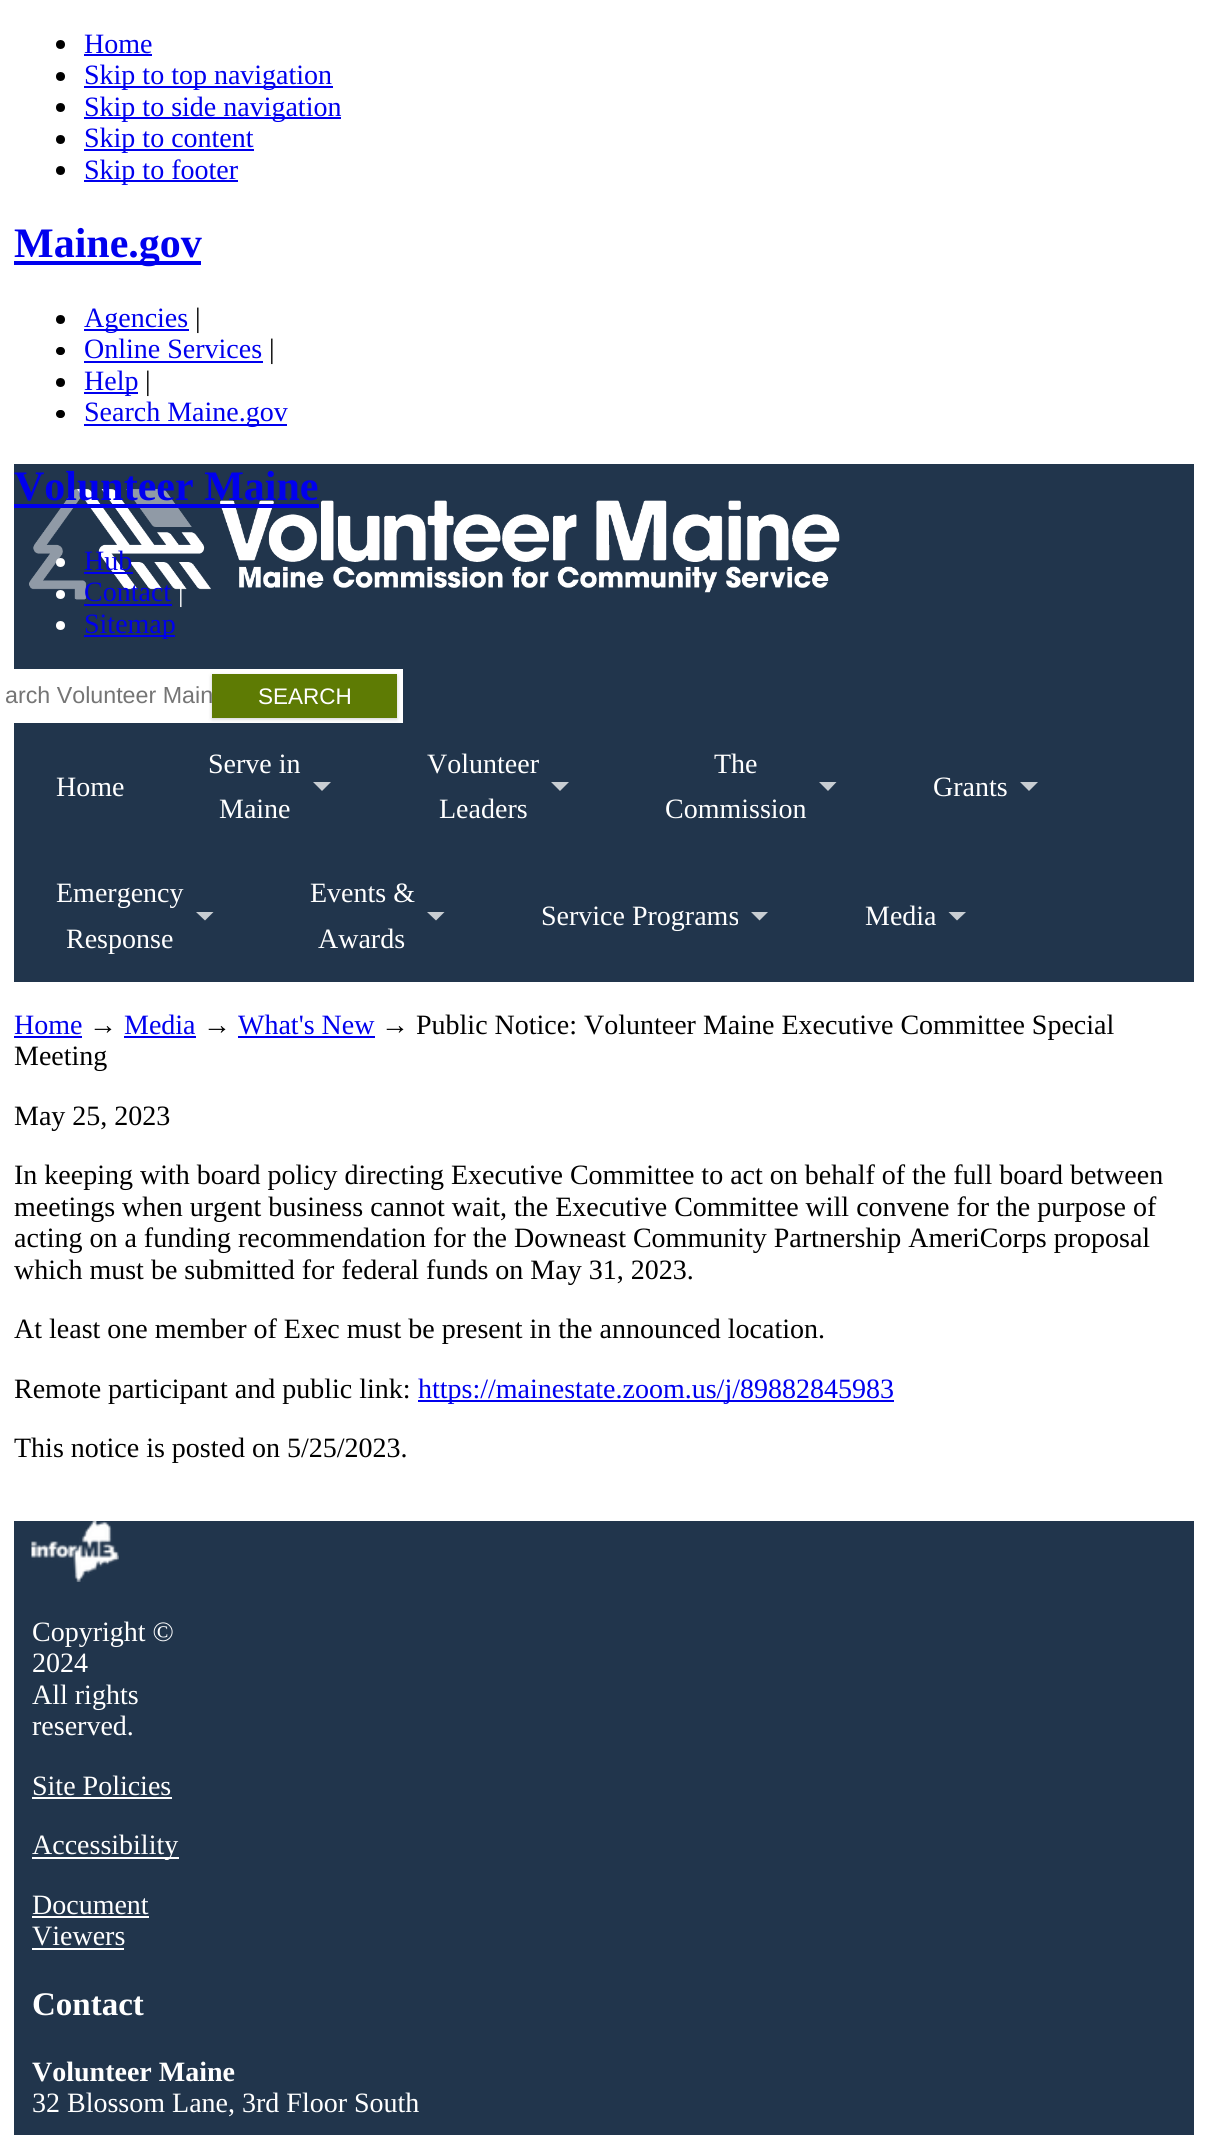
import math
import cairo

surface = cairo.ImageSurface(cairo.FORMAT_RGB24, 1206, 2135)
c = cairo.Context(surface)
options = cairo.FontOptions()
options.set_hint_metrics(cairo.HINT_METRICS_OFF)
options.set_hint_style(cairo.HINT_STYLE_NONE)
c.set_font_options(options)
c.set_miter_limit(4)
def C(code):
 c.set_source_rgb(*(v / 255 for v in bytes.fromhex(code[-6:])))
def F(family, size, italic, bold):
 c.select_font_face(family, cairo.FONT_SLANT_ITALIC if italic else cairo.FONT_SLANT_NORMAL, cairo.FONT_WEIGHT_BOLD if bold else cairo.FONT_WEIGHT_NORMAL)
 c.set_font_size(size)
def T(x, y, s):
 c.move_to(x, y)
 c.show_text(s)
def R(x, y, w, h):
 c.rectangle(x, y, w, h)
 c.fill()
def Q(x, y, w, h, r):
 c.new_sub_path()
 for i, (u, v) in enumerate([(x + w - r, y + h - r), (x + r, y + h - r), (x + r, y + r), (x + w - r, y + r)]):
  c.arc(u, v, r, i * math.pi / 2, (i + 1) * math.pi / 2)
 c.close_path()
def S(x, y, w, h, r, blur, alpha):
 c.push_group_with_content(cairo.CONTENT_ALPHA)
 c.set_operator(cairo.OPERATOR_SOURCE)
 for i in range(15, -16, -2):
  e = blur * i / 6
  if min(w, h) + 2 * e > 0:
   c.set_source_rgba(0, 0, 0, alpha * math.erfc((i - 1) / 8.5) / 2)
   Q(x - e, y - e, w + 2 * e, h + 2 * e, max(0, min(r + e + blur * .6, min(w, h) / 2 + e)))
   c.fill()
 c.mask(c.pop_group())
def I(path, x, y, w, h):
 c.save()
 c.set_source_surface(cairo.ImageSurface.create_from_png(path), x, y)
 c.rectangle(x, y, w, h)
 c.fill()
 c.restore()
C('ffffff')
c.paint()
C('000000')
c.arc(60.5,44.5,4.5,0,2 * math.pi)
c.fill()
F('Liberation Serif',28,0,0)
C('0000ee')
T(84,53,'Home')
R(84,54,68,2)
C('000000')
c.new_path()
c.arc(60.5,76.5,4.5,0,2 * math.pi)
c.fill()
C('0000ee')
R(84,86,249,2)
T(84,84,'Skip to top navigation')
C('000000')
c.new_path()
c.arc(60.5,107.5,4.5,0,2 * math.pi)
c.fill()
C('0000ee')
R(84,117,257,2)
T(84,116,'Skip to side navigation')
C('000000')
c.new_path()
c.arc(60.5,139.5,4.5,0,2 * math.pi)
c.fill()
C('0000ee')
R(84,149,170,2)
T(84,147,'Skip to content')
C('000000')
c.new_path()
c.arc(60.5,170.5,4.5,0,2 * math.pi)
c.fill()
C('0000ee')
R(84,180,154,2)
T(84,179,'Skip to footer')
R(14,261,187,4)
F('Liberation Serif',42,0,1)
T(14,257,'Maine.gov')
C('000000')
c.new_path()
c.arc(60.5,319.5,4.5,0,2 * math.pi)
c.fill()
C('0000ee')
R(84,329,105,2)
F('Liberation Serif',28,0,0)
T(84,327,'Agencies')
C('000000')
T(195,327,'|')
Q(56,347,9,8,4)
c.fill()
C('0000ee')
T(84,358,'Online Services')
R(84,361,179,2)
C('000000')
T(269,358,'|')
c.new_path()
c.arc(60.5,382.5,4.5,0,2 * math.pi)
c.fill()
C('0000ee')
R(84,392,54,2)
T(84,390,'Help')
C('000000')
T(145,390,'|')
Q(56,410,9,8,4)
c.fill()
C('0000ee')
R(84,424,203,2)
T(84,421,'Search Maine.gov')
C('21354c')
R(14,464,1180,518)
I('1.png',29,489,811,111)
F('Liberation Serif',42,0,1)
C('0000ee')
T(14,500,'Volunteer Maine')
R(14,504,305,4)
C('ffffff')
c.new_path()
c.arc(60.5,562.5,4.5,0,2 * math.pi)
c.fill()
F('Liberation Serif',28,0,0)
C('0000ee')
T(84,570,'Hub')
R(84,572,49,2)
C('ffffff')
c.new_path()
c.arc(60.5,594.5,4.5,0,2 * math.pi)
c.fill()
C('0000ee')
T(84,601,'Contact')
R(84,604,88,2)
C('ffffff')
T(178,601,'|')
c.new_path()
c.arc(60.5,625.5,4.5,0,2 * math.pi)
c.fill()
C('0000ee')
R(84,635,91,2)
T(84,633,'Sitemap')
C('ffffff')
R(14,669,389,54)
F('Liberation Sans',23.25,0,0)
C('757575')
T(5,703,'arch Volunteer Main')
C('000000')
S(212,676,185,43,0,2,.2)
C('5e7b04')
R(212,674,185,44)
F('Liberation Sans',22.5,0,0)
C('ffffff')
T(258,704,'SEARCH')
F('Liberation Serif',28,0,0)
T(56,796,'Home')
T(208,773,'Serve in')
C('c8cdd2')
c.new_path()
c.move_to(313,782)
c.line_to(331,782)
c.line_to(322,791)
c.close_path()
c.fill()
C('ffffff')
T(219,818,'Maine')
T(427,773,'Volunteer')
C('c8cdd2')
c.new_path()
c.move_to(551,782)
c.line_to(569,782)
c.line_to(560,791)
c.close_path()
c.fill()
C('ffffff')
T(439,818,'Leaders')
T(714,773,'The')
C('c8cdd2')
c.new_path()
c.move_to(819,782)
c.line_to(836.5,782)
c.line_to(828,791)
c.close_path()
c.fill()
C('ffffff')
T(665,818,'Commission')
T(933,796,'Grants')
C('c8cdd2')
c.new_path()
c.move_to(1020,782)
c.line_to(1038,782)
c.line_to(1029,791)
c.close_path()
c.fill()
C('ffffff')
T(56,902,'Emergency')
C('c8cdd2')
c.new_path()
c.move_to(196,912)
c.line_to(213.5,912)
c.line_to(205,920.5)
c.close_path()
c.fill()
C('ffffff')
T(66,948,'Response')
T(310,902,'Events &')
C('c8cdd2')
c.new_path()
c.move_to(427,912)
c.line_to(444.5,912)
c.line_to(436,920.5)
c.close_path()
c.fill()
C('ffffff')
T(318,948,'Awards')
T(541,925,'Service Programs')
C('c8cdd2')
c.new_path()
c.move_to(751,912)
c.line_to(768,912)
c.line_to(759.5,920.5)
c.close_path()
c.fill()
C('ffffff')
T(865,925,'Media')
C('c8cdd2')
c.new_path()
c.move_to(948.5,912)
c.line_to(966,912)
c.line_to(957,920.5)
c.close_path()
c.fill()
C('0000ee')
T(14,1034,'Home')
R(14,1036,68,2)
C('000000')
T(89,1034,'→')
C('0000ee')
T(124,1034,'Media')
R(124,1036,72,2)
C('000000')
T(203,1034,'→')
C('0000ee')
T(238,1034,'What\'s New')
R(238,1036,137,2)
C('000000')
T(381,1034,'→ Public Notice: Volunteer Maine Executive Committee Special')
T(14,1065,'Meeting')
T(14,1125,'May 25, 2023')
T(14,1184,'In keeping with board policy directing Executive Committee to act on behalf of the full board between')
T(14,1216,'meetings when urgent business cannot wait, the Executive Committee will convene for the purpose of')
T(14,1247,'acting on a funding recommendation for the Downeast Community Partnership AmeriCorps proposal')
T(14,1279,'which must be submitted for federal funds on May 31, 2023.')
T(14,1338,'At least one member of Exec must be present in the announced location.')
T(14,1398,'Remote participant and public link:')
C('0000ee')
R(418,1400,476,2)
T(418,1398,'https://mainestate.zoom.us/j/89882845983')
C('000000')
T(14,1457,'This notice is posted on 5/25/2023.')
C('21354c')
R(14,1521,1180,614)
I('2.png',31,1521,88,61)
C('ffffff')
T(32,1641,'Copyright ©')
T(32,1672,'2024')
T(32,1704,'All rights')
T(32,1735,'reserved.')
T(32,1795,'Site Policies')
R(32,1797,140,2)
R(32,1857,147,2)
T(32,1854,'Accessibility')
T(32,1914,'Document')
R(32,1916,117,2)
T(32,1945,'Viewers')
R(32,1948,92,2)
F('Liberation Serif',33,0,1)
T(32,2015,'Contact')
F('Liberation Serif',28,0,1)
T(32,2081,'Volunteer Maine')
F('Liberation Serif',28,0,0)
T(32,2112,'32 Blossom Lane, 3rd Floor South')
surface.write_to_png('o.png')
